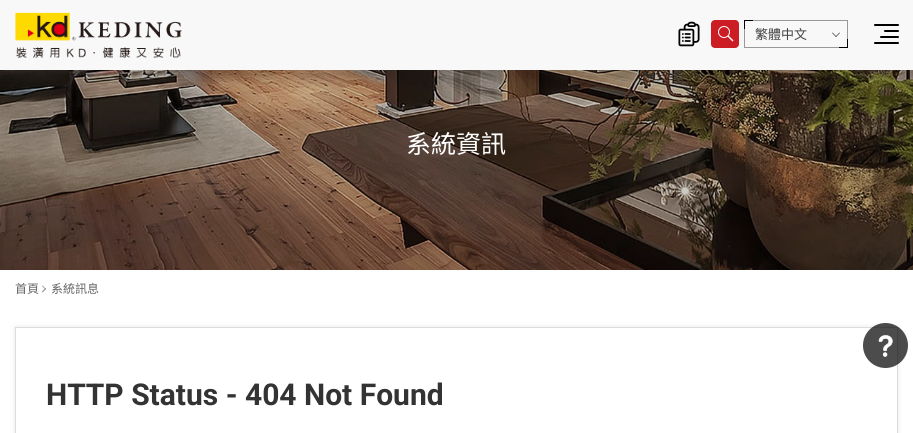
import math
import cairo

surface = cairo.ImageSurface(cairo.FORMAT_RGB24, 913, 433)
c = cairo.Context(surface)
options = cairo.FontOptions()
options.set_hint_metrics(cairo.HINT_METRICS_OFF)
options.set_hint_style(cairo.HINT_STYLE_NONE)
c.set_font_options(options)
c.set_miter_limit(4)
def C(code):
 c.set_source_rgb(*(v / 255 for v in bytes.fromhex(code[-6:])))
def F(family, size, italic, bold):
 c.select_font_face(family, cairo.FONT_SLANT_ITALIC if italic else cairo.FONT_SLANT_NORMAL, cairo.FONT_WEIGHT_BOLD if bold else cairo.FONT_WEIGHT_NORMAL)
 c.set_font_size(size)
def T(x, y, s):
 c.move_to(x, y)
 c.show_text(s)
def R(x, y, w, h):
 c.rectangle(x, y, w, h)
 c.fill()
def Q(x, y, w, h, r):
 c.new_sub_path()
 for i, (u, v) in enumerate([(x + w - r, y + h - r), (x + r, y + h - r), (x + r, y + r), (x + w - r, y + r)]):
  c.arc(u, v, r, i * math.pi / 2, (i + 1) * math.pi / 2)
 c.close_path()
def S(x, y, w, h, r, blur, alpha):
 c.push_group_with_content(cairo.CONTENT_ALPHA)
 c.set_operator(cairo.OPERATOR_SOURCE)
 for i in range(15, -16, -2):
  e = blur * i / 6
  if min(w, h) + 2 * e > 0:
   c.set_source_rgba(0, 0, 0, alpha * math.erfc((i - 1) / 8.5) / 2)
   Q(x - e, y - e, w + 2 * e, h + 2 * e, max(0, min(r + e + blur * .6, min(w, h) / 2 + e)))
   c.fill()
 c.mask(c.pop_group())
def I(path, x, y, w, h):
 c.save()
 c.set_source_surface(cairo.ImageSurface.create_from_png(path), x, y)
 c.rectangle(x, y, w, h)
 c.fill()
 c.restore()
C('ffffff')
c.paint()
I('3.png',0,70,913,200)
C('000000')
S(0,10,913,70,0,7.5,.1)
C('f8f8f8')
R(0,0,913,70)
I('1.png',15,12,167,46)
I('2.png',678,21,22,26)
C('cc1d24')
Q(711,20,28,28,4)
c.fill()
c.arc(724,32,5.5,0,2 * math.pi)
C('ffffff')
c.set_line_width(1)
c.stroke()
c.new_path()
c.move_to(728.5,35.5)
c.line_to(733.5,40.5)
c.line_to(732.5,41.5)
c.line_to(727.5,36.5)
c.close_path()
c.fill()
c.rectangle(744.5,20.5,103,27)
C('999999')
c.stroke()
C('010101')
R(744,20,9,1)
R(744,20,1,9)
F('Noto Sans TC',13,0,0)
C('444444')
T(755,39,'繁體中文')
c.new_path()
c.move_to(839.5,32.5)
c.line_to(840,33)
c.line_to(836,37)
c.line_to(835.5,36.5)
c.close_path()
c.fill()
c.new_path()
c.move_to(832.5,32.5)
c.line_to(836.5,36.5)
c.line_to(836,37)
c.line_to(832,33)
c.close_path()
c.fill()
C('010101')
R(847,39,1,9)
R(839,47,9,1)
C('000000')
Q(874,24,25,2,1)
c.fill()
Q(884,30,15,2,1)
c.fill()
Q(880,36,19,2,1)
c.fill()
Q(874,42,25,2,1)
c.fill()
F('Noto Sans TC',25,0,0)
C('ffffff')
T(406,153,'系統資訊')
F('Noto Sans TC',12,0,0)
C('666666')
T(15,293,'首頁')
C('888888')
c.new_path()
c.move_to(42,286)
c.line_to(42.5,285.5)
c.line_to(46,289)
c.line_to(45.5,289.5)
c.close_path()
c.fill()
c.new_path()
c.move_to(42,291.5)
c.line_to(45.5,288)
c.line_to(46,289)
c.line_to(42.5,292.5)
c.close_path()
c.fill()
C('666666')
T(51,293,'系統訊息')
c.save()
c.set_fill_rule(cairo.FILL_RULE_EVEN_ODD)
c.new_path()
c.move_to(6,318)
c.line_to(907,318)
c.line_to(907,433)
c.line_to(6,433)
c.close_path()
c.move_to(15,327)
c.line_to(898,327)
c.line_to(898,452)
c.line_to(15,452)
c.close_path()
c.clip()
C('000000')
S(15,327,883,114,0,2.5,.1)
c.restore()
c.rectangle(15.5,327.5,882,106)
C('dddddd')
c.stroke()
F('Roboto',30,0,1)
C('333333')
T(46,405,'HTTP Status - 404 Not Found')
c.set_source_rgba(0,0,0,0.7)
c.new_path()
c.arc(885.5,345.5,22.5,0,2 * math.pi)
c.fill()
I('4.png',878,335,15,22)
surface.write_to_png('o.png')
